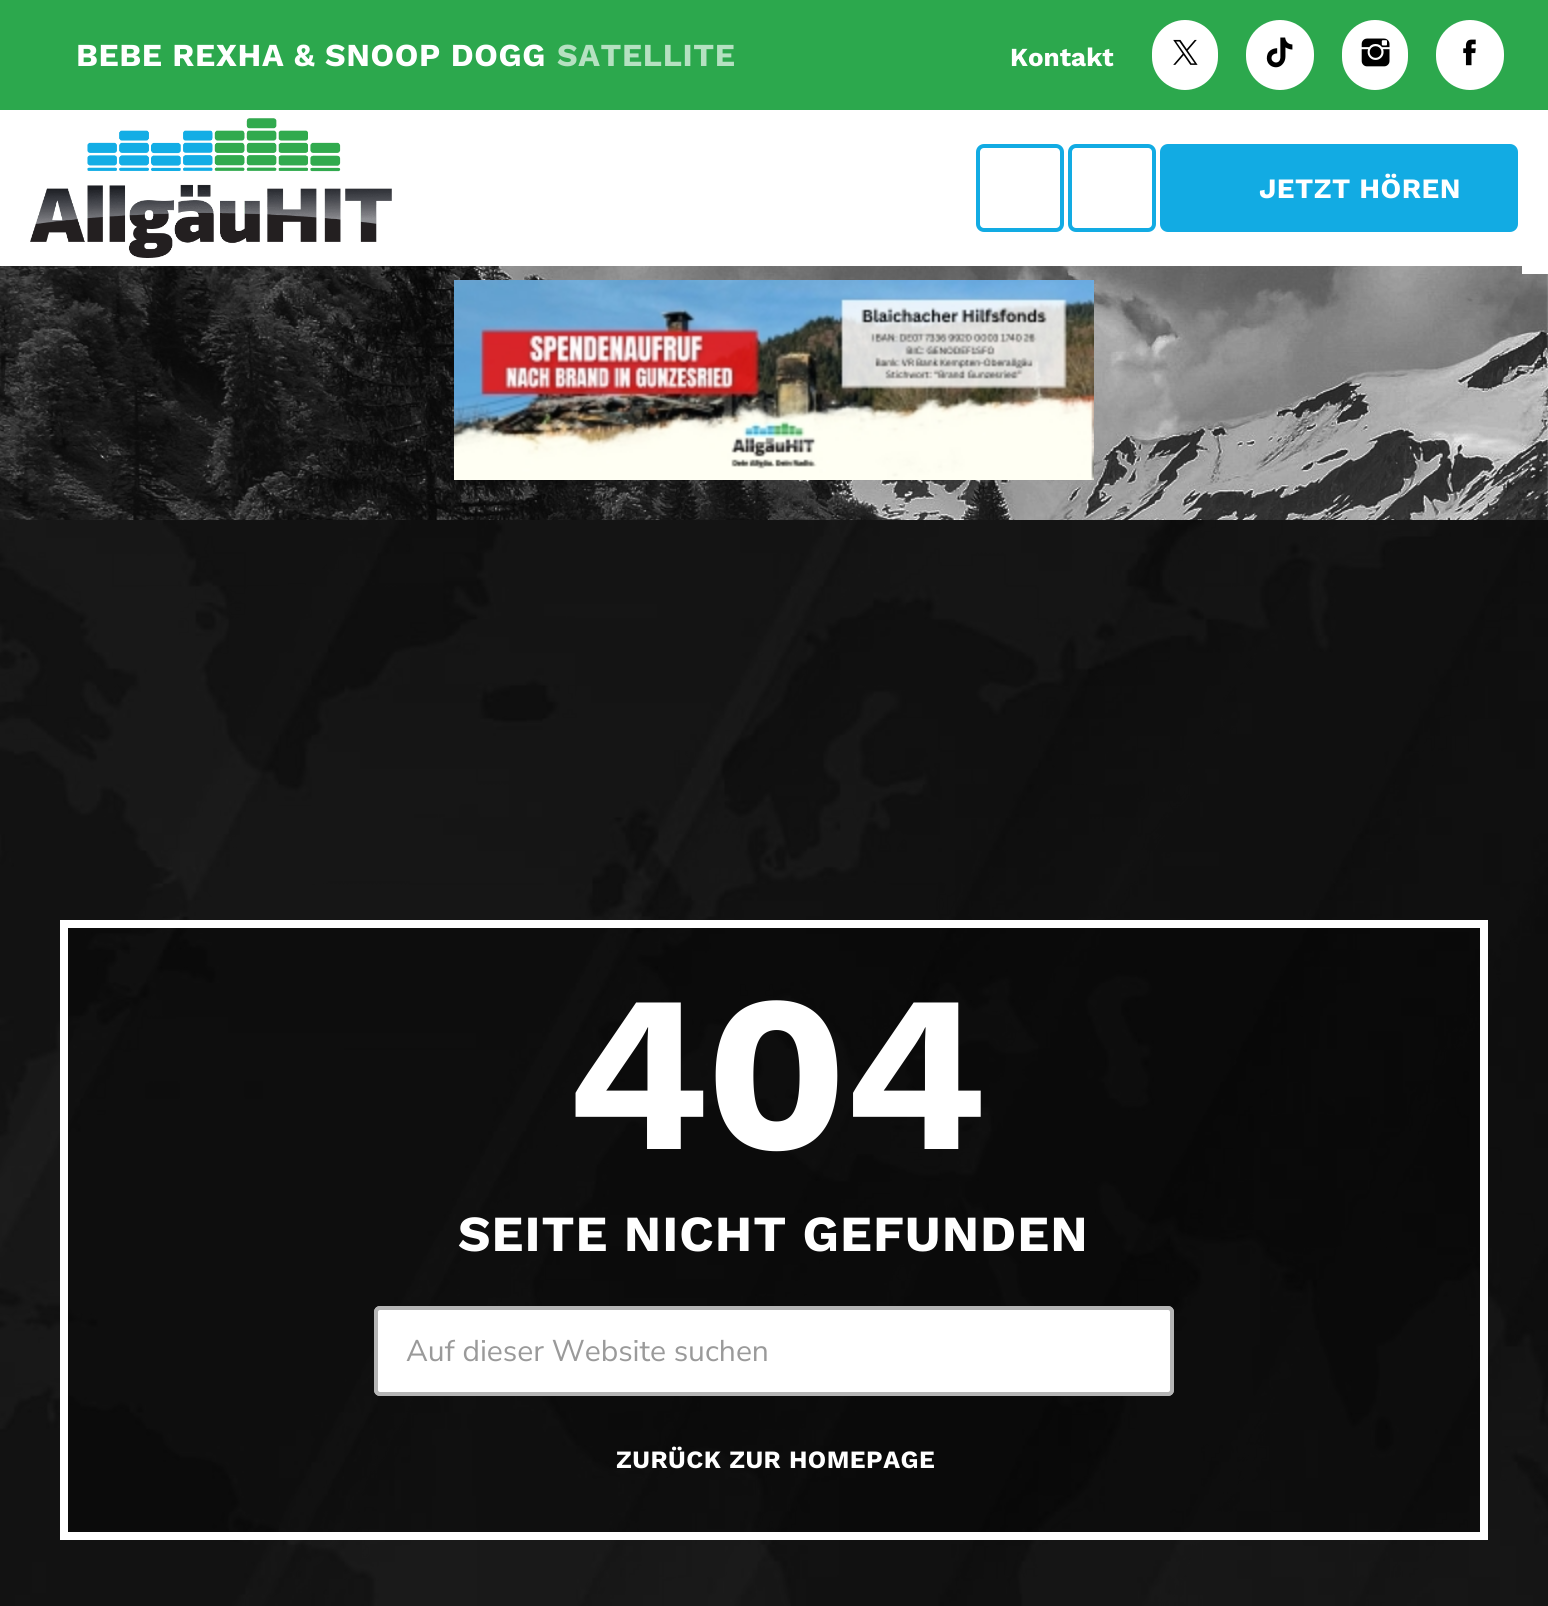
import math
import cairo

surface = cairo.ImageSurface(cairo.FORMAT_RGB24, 1548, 1606)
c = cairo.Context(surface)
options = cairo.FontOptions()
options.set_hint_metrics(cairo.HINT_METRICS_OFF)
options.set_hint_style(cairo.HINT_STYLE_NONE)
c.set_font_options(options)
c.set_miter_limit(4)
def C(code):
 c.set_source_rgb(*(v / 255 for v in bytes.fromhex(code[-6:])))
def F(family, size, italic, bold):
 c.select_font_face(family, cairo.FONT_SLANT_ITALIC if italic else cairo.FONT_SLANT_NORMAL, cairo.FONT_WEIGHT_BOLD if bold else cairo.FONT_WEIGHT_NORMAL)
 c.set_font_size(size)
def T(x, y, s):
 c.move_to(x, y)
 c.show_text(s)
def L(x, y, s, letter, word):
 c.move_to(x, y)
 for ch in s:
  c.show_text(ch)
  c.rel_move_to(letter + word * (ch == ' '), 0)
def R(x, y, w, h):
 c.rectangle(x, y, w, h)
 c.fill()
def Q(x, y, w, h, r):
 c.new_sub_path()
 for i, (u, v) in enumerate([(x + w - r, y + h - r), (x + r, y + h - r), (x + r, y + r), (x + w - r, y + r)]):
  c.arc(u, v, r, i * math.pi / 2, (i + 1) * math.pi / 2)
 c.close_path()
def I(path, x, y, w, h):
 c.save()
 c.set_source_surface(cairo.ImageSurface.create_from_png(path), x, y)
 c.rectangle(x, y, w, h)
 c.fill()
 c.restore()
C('ffffff')
c.paint()
I('1.png',0,266,1548,254)
C('2ca84d')
R(0,0,1548,110)
F('Work Sans',32,0,1)
C('ffffff')
L(76,66,'BEBE REXHA & SNOOP DOGG',.6,0)
C('b5e1c1')
L(557,66,'SATELLITE',.6,0)
F('Work Sans',26,0,1)
C('ffffff')
T(1010,66,'Kontakt')
Q(1152,20,66,70,33)
c.fill()
I('2.png',1173,39,25,26)
Q(1246,20,68,70,34)
c.fill()
I('3.png',1266,37,27,31)
Q(1342,20,66,70,33)
c.fill()
I('4.png',1361,38,29,29)
Q(1436,20,68,70,34)
c.fill()
I('5.png',1463,39,13,27)
I('6.png',30,118,362,140)
Q(978,146,84,84,6)
C('12abe3')
c.set_line_width(4)
c.stroke()
Q(1070,146,84,84,6)
c.stroke()
Q(1160,144,358,88,8)
c.fill()
F('Work Sans',28,0,1)
C('ffffff')
L(1259,198,'JETZT HÖREN',.5,0)
c.set_source_rgba(0.392,0.392,0.392,0.07)
R(0,266,1548,254)
C('ffffff')
R(1522,266,26,8)
I('7.png',454,280,640,200)
I('8.png',0,520,1548,1086)
c.set_source_rgba(0,0,0,0.4)
c.rectangle(64,924,1420,612)
c.fill_preserve()
C('ffffff')
c.set_line_width(8)
c.stroke()
F('Work Sans',222,0,1)
L(566,1149,'404',-4.5,0)
F('Work Sans',50.5,0,1)
L(458,1251,'SEITE NICHT GEFUNDEN',1,0)
Q(374,1306,800,90,6)
c.fill()
Q(376,1308,796,86,4)
c.set_source_rgba(0.588,0.588,0.588,0.7)
c.set_line_width(4)
c.stroke()
F('Nunito Sans',30,0,0)
C('9a9a9a')
T(406,1361,'Auf dieser Website suchen')
F('Work Sans',24.9,0,1)
C('ffffff')
L(616,1468,'ZURÜCK ZUR HOMEPAGE',.5,0)
surface.write_to_png('o.png')
